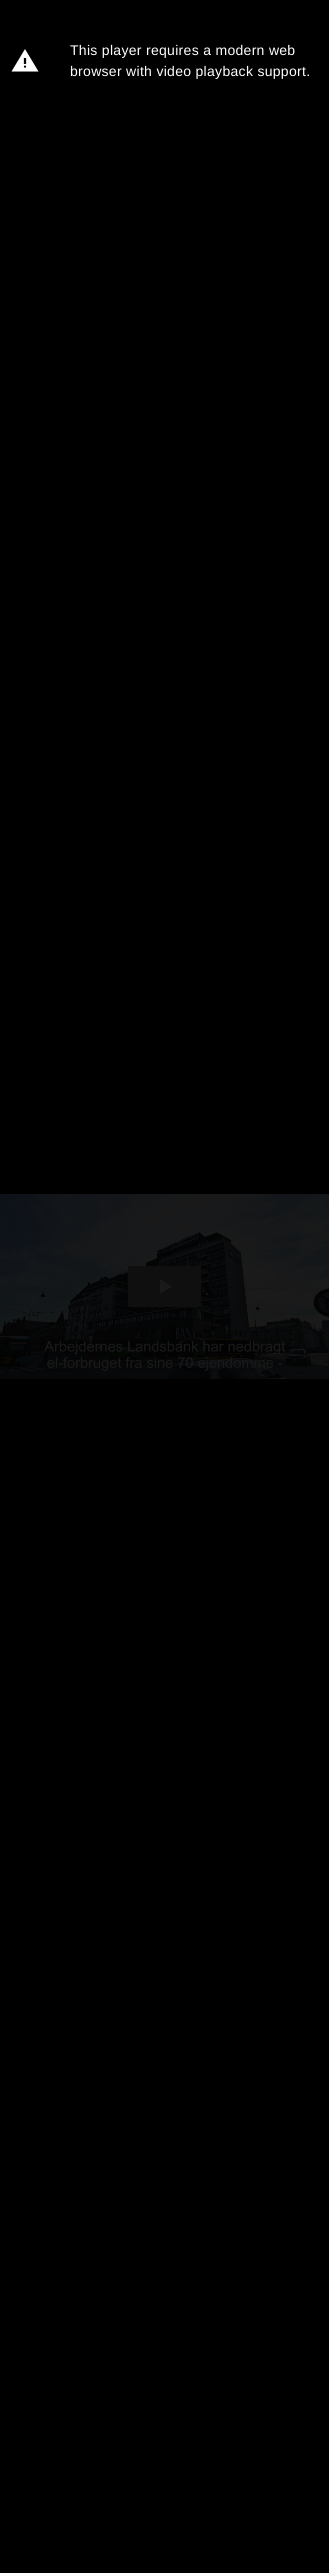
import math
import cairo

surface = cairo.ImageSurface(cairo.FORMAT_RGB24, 329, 2573)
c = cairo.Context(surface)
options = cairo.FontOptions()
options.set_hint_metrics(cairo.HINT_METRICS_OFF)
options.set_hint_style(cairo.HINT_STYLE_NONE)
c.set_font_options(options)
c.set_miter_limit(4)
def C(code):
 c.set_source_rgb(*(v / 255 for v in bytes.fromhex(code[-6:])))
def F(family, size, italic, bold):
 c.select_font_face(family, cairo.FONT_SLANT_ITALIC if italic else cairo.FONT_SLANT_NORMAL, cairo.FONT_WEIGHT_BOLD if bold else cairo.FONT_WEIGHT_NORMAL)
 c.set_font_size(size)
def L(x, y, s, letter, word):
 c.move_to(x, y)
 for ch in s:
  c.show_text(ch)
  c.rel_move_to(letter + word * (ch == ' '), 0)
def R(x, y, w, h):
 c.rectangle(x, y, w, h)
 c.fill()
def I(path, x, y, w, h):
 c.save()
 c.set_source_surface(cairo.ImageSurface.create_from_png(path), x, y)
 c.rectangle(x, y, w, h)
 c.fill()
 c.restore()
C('000000')
c.paint()
I('1.png',11,49,28,23)
F('Liberation Sans',14,0,0)
C('ffffff')
L(70,55,'This player requires a modern web',.3,0)
L(70,76,'browser with video playback support.',.3,0)
I('2.png',0,1194,329,185)
C('0f0f0f')
R(128,1266,73,41)
C('191919')
c.new_path()
c.move_to(160,1279)
c.line_to(160,1294)
c.line_to(172,1286.5)
c.close_path()
c.fill()
surface.write_to_png('o.png')
